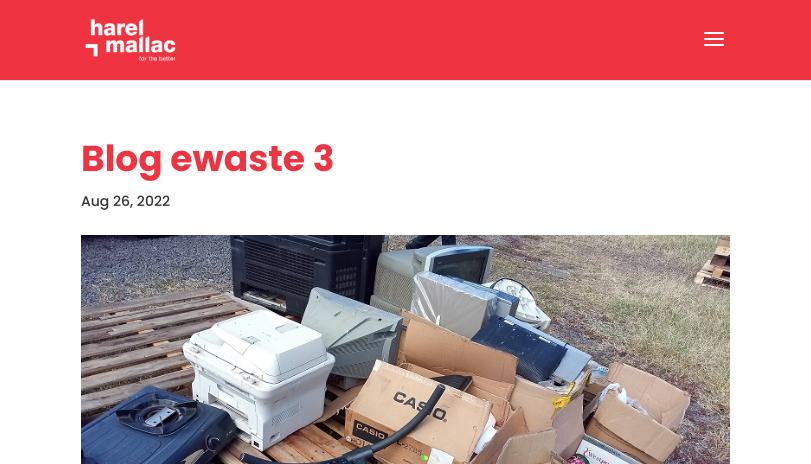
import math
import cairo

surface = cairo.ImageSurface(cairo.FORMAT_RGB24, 811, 464)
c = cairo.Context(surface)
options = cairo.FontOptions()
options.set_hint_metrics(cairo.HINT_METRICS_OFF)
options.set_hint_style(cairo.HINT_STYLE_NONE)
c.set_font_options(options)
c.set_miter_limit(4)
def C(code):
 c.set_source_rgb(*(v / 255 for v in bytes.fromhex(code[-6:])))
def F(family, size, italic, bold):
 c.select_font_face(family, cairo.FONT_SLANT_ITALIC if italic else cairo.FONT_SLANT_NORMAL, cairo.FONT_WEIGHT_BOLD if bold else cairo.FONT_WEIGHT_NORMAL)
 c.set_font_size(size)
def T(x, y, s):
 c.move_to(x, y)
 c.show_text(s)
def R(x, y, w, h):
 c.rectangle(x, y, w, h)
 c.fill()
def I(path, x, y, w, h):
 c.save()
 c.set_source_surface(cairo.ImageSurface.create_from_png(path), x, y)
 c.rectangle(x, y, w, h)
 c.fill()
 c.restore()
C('ffffff')
c.paint()
C('e6e6e6')
R(0,80,811,1)
C('ef3340')
R(0,0,811,80)
I('1.png',85,18,91,44)
I('2.png',704,32,20,14)
F('Poppins',36,0,1)
T(81,171,'Blog ewaste 3')
F('Poppins Medium',14,0,0)
C('333333')
T(81,206,'Aug 26, 2022')
I('3.png',81,235,649,229)
surface.write_to_png('o.png')
